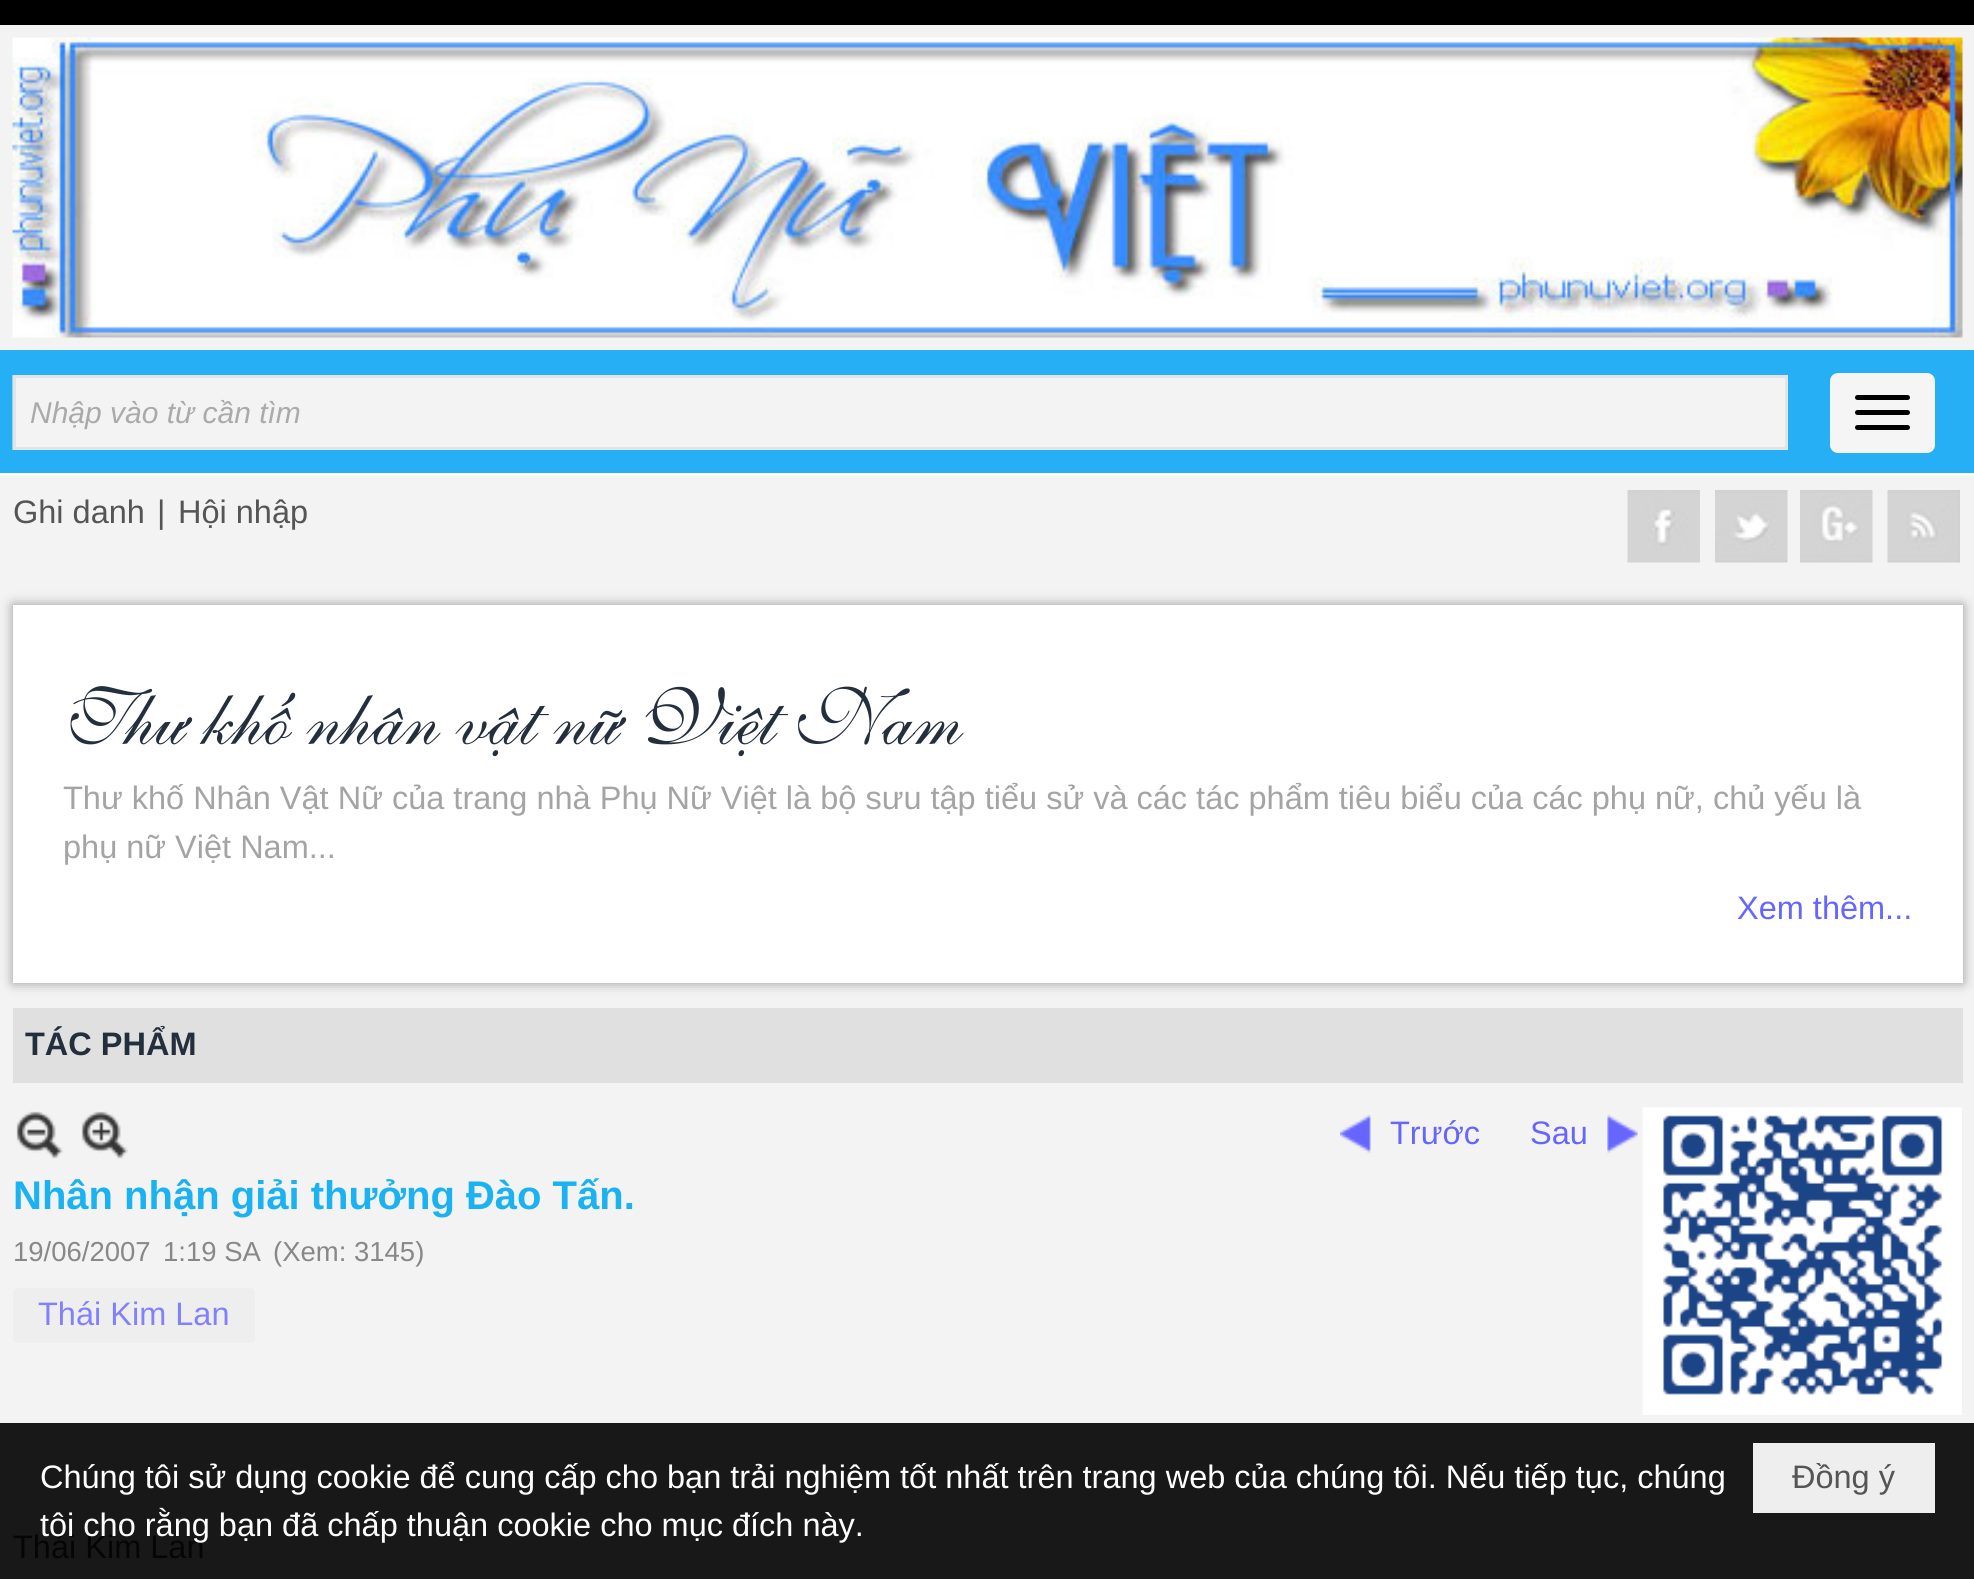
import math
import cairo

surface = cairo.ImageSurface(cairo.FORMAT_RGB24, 1974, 1579)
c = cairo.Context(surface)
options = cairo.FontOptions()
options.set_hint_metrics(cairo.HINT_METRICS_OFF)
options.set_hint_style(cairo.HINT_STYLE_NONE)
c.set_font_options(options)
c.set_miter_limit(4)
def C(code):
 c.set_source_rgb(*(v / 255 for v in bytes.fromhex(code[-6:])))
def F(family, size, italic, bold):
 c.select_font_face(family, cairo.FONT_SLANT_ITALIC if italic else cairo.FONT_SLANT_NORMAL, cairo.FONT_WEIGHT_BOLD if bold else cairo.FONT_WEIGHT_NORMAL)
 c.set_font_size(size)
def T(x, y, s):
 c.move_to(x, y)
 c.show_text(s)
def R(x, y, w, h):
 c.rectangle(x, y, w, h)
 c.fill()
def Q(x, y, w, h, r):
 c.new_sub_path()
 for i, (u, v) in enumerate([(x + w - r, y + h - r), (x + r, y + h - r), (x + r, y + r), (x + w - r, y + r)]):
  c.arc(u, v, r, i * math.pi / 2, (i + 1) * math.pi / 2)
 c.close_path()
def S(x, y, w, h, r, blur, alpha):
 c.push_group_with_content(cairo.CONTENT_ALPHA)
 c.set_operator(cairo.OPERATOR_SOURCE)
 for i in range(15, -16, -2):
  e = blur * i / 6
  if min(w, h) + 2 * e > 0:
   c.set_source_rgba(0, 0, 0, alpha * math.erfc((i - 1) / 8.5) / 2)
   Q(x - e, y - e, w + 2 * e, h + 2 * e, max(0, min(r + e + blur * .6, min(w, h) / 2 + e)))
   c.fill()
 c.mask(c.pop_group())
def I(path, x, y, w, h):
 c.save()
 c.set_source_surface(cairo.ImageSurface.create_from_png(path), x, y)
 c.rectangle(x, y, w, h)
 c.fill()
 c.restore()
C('f3f3f3')
c.paint()
C('181818')
R(0,1423,1974,156)
C('000000')
R(0,0,1974,25)
I('1.png',12,37,1951,301)
C('26aff5')
R(0,350,1974,123)
C('fafafa')
R(0,473,1974,3)
C('f5f5f5')
Q(1830,373,105,80,8)
c.fill()
C('000000')
Q(1855,395,55,5,2.5)
c.fill()
Q(1855,410,55,5,2.5)
c.fill()
Q(1855,425,55,5,2.5)
c.fill()
C('f3f3f3')
c.rectangle(14.5,376.5,1772,72)
c.fill_preserve()
C('e4e4e4')
c.set_line_width(3)
c.stroke()
C('8dd1f4')
R(12,375,1,75)
F('Liberation Sans',30,1,0)
C('aaaaaa')
T(30,423,'Nhập vào từ cần tìm')
F('Liberation Sans',32.5,0,0)
C('555555')
T(13,523,'Ghi danh')
T(157,523,'|')
T(178,523,'Hội nhập')
I('2.png',1627,490,73,73)
I('3.png',1715,490,73,73)
I('4.png',1800,490,73,73)
I('5.png',1887,490,73,73)
C('999999')
S(13,605,1950,378,0,6,1)
C('ffffff')
R(13,605,1950,378)
F('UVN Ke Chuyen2',80,1,0)
C('242f3e')
T(63,744,'Thư khố nhân vật nữ Việt Nam')
F('Liberation Sans',32.5,0,0)
C('a4a4a4')
T(63,809,'Thư khố Nhân Vật Nữ của trang nhà Phụ Nữ Việt là bộ sưu tập tiểu sử và các tác phẩm tiêu biểu của các phụ nữ, chủ yếu là')
T(63,858,'phụ nữ Việt Nam...')
C('6666ff')
T(1737,919,'Xem thêm...')
C('e0e0e0')
R(13,1008,1950,75)
F('Liberation Sans',32.5,0,1)
C('242f3e')
T(25,1055,'TÁC PHẨM')
I('6.png',16,1111,47,48)
I('7.png',81,1111,47,48)
I('8.png',1340,1114,31,40)
F('Liberation Sans',32.5,0,0)
C('6666ff')
T(1390,1144,'Trước')
I('9.png',1607,1114,31,40)
T(1530,1144,'Sau')
I('10.png',1642,1107,320,308)
F('Liberation Sans',40,0,1)
C('1bb2f1')
T(13,1209,'Nhân nhận giải thưởng Đào Tấn.')
F('Liberation Sans',27.5,0,0)
C('888888')
T(13,1261,'19/06/2007')
T(163,1261,'1:19 SA')
T(273,1261,'(Xem: 3145)')
C('eeeeee')
Q(13,1288,242,55,5)
c.fill()
F('Liberation Sans',32.5,0,0)
C('8181fb')
T(38,1325,'Thái Kim Lan')
C('050505')
T(13,1558,'Thái Kim Lan')
C('ffffff')
T(40,1488,'Chúng tôi sử dụng cookie để cung cấp cho bạn trải nghiệm tốt nhất trên trang web của chúng tôi. Nếu tiếp tục, chúng')
T(40,1536,'tôi cho rằng bạn đã chấp thuận cookie cho mục đích này.')
C('eeeeee')
R(1753,1443,182,70)
C('555555')
T(1792,1488,'Đồng ý')
surface.write_to_png('o.png')
